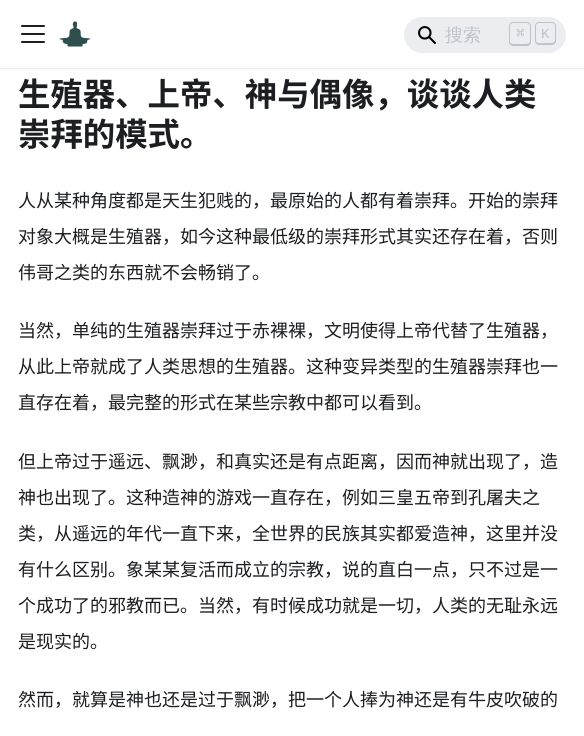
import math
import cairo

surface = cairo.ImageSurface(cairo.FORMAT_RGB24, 584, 736)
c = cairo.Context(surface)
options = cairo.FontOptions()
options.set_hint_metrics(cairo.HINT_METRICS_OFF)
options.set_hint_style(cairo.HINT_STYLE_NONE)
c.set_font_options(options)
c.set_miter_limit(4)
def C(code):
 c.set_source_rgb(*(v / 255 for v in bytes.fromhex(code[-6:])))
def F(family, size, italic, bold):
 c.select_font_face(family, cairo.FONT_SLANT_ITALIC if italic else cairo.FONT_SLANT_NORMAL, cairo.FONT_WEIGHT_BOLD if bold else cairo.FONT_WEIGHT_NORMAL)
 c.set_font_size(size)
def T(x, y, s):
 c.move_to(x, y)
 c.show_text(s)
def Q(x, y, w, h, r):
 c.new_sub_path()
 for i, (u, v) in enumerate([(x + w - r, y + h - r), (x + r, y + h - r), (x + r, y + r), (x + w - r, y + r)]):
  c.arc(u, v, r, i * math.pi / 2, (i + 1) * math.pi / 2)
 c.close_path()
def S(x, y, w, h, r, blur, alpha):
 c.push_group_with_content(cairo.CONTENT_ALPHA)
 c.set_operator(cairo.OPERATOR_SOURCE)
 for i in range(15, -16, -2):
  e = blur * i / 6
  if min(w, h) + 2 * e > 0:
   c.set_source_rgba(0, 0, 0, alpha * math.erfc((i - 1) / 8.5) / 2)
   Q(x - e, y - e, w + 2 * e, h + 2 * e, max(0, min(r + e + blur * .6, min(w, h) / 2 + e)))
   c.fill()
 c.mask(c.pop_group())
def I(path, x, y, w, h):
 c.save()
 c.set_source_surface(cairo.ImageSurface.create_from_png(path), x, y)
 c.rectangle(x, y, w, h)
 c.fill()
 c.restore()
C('ffffff')
c.paint()
c.save()
c.rectangle(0,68,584,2)
c.clip()
C('000000')
S(0,1,584,68,0,1,.1)
c.restore()
I('1.png',21,25,24,18)
I('2.png',59,21,32,26)
C('ebedf0')
Q(404,17,162,36,18)
c.fill()
I('3.png',418,26,18,18)
F('WenQuanYi Zen Hei Medium',18,0,0)
C('bec3c9')
T(445,41,'搜索')
c.new_path()
c.move_to(530,41.5)
c.curve_to(529.5,43,528,44,525,44)
c.line_to(513,44)
c.curve_to(511.5,44,510.5,43,510,41.5)
c.curve_to(510,45,512,45,515,45)
c.line_to(525,45)
c.curve_to(528,45,530,45,530,41.5)
c.close_path()
c.fill()
Q(509.5,22.5,21,23,3.5)
c.set_line_width(1)
c.stroke()
F('DejaVu Sans Mono',14,0,0)
T(516,38,'⌘')
c.new_path()
c.move_to(555,40.5)
c.curve_to(554,44,547,43,544.5,43)
c.curve_to(542,43,537,44,536,41)
c.curve_to(536,44,538,44,541,44)
c.line_to(550,44)
c.curve_to(553.5,44,555,44,555,40.5)
c.close_path()
c.fill()
Q(535.5,22.5,20,22,3.5)
c.stroke()
F('Liberation Mono',14,0,0)
T(541,38,'K')
F('Noto Sans SC',32.4,0,1)
C('1c1e21')
T(18,106,'生殖器、上帝、神与偶像，谈谈人类')
T(18,146,'崇拜的模式。')
F('Noto Sans SC',18,0,0)
T(18,207,'人从某种角度都是天生犯贱的，最原始的人都有着崇拜。开始的崇拜')
T(18,243,'对象大概是生殖器，如今这种最低级的崇拜形式其实还存在着，否则')
T(18,279,'伟哥之类的东西就不会畅销了。')
T(18,337,'当然，单纯的生殖器崇拜过于赤裸裸，文明使得上帝代替了生殖器，')
T(18,373,'从此上帝就成了人类思想的生殖器。这种变异类型的生殖器崇拜也一')
T(18,409,'直存在着，最完整的形式在某些宗教中都可以看到。')
T(18,468,'但上帝过于遥远、飘渺，和真实还是有点距离，因而神就出现了，造')
T(18,504,'神也出现了。这种造神的游戏一直存在，例如三皇五帝到孔屠夫之')
T(18,540,'类，从遥远的年代一直下来，全世界的民族其实都爱造神，这里并没')
T(18,576,'有什么区别。象某某复活而成立的宗教，说的直白一点，只不过是一')
T(18,612,'个成功了的邪教而已。当然，有时候成功就是一切，人类的无耻永远')
T(18,648,'是现实的。')
T(18,706,'然而，就算是神也还是过于飘渺，把一个人捧为神还是有牛皮吹破的')
surface.write_to_png('o.png')
